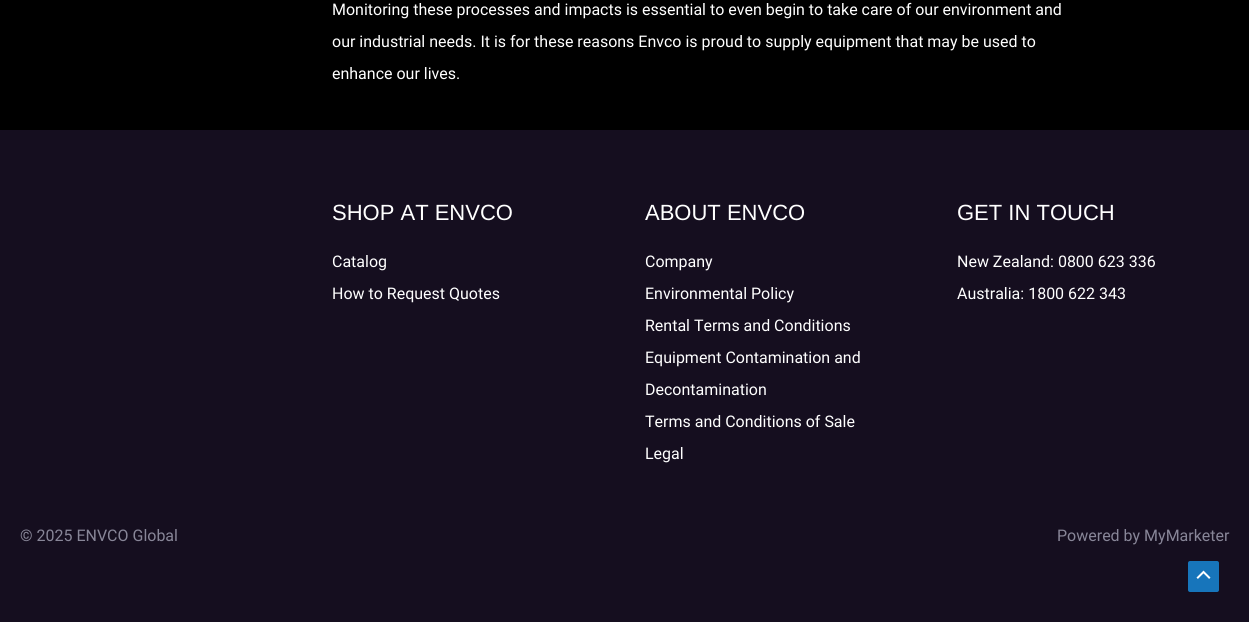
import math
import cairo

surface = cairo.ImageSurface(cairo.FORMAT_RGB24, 1249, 622)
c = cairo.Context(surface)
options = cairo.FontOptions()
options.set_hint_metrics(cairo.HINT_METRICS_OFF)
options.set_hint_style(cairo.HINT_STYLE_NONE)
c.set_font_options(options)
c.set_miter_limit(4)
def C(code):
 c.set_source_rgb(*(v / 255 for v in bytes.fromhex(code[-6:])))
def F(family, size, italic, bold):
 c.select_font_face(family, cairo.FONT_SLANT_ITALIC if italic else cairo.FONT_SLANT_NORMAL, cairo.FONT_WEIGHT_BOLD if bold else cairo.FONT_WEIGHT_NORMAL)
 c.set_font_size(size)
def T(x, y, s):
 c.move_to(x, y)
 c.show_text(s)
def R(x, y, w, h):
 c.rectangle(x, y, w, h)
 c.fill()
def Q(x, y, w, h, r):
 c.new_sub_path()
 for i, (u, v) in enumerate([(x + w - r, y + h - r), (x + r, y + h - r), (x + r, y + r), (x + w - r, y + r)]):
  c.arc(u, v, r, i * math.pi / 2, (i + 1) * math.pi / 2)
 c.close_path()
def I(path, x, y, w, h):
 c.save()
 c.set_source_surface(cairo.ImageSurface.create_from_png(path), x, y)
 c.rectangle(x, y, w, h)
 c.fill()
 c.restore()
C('000000')
c.paint()
F('Roboto',16,0,0)
C('ffffff')
T(332,15,'Monitoring these processes and impacts is essential to even begin to take care of our environment and')
T(332,47,'our industrial needs. It is for these reasons Envco is proud to supply equipment that may be used to')
T(332,79,'enhance our lives.')
C('150e1f')
R(0,130,1249,492)
F('Liberation Sans',22,0,0)
C('ffffff')
T(332,220,'SHOP AT ENVCO')
F('Roboto',16,0,0)
T(332,267,'Catalog')
T(332,299,'How to Request Quotes')
F('Liberation Sans',22,0,0)
T(645,220,'ABOUT ENVCO')
F('Roboto',16,0,0)
T(645,267,'Company')
T(645,299,'Environmental Policy')
T(645,331,'Rental Terms and Conditions')
T(645,363,'Equipment Contamination and')
T(645,395,'Decontamination')
T(645,427,'Terms and Conditions of Sale')
T(645,459,'Legal')
F('Liberation Sans',22,0,0)
T(957,220,'GET IN TOUCH')
F('Roboto',16,0,0)
T(957,267,'New Zealand: 0800 623 336')
T(957,299,'Australia: 1800 622 343')
C('888698')
T(20,541,'© 2025 ENVCO Global')
T(1057,541,'Powered by MyMarketer')
C('1775bb')
Q(1188,561,31,31,2)
c.fill()
I('1.png',1196,570,15,9)
surface.write_to_png('o.png')
